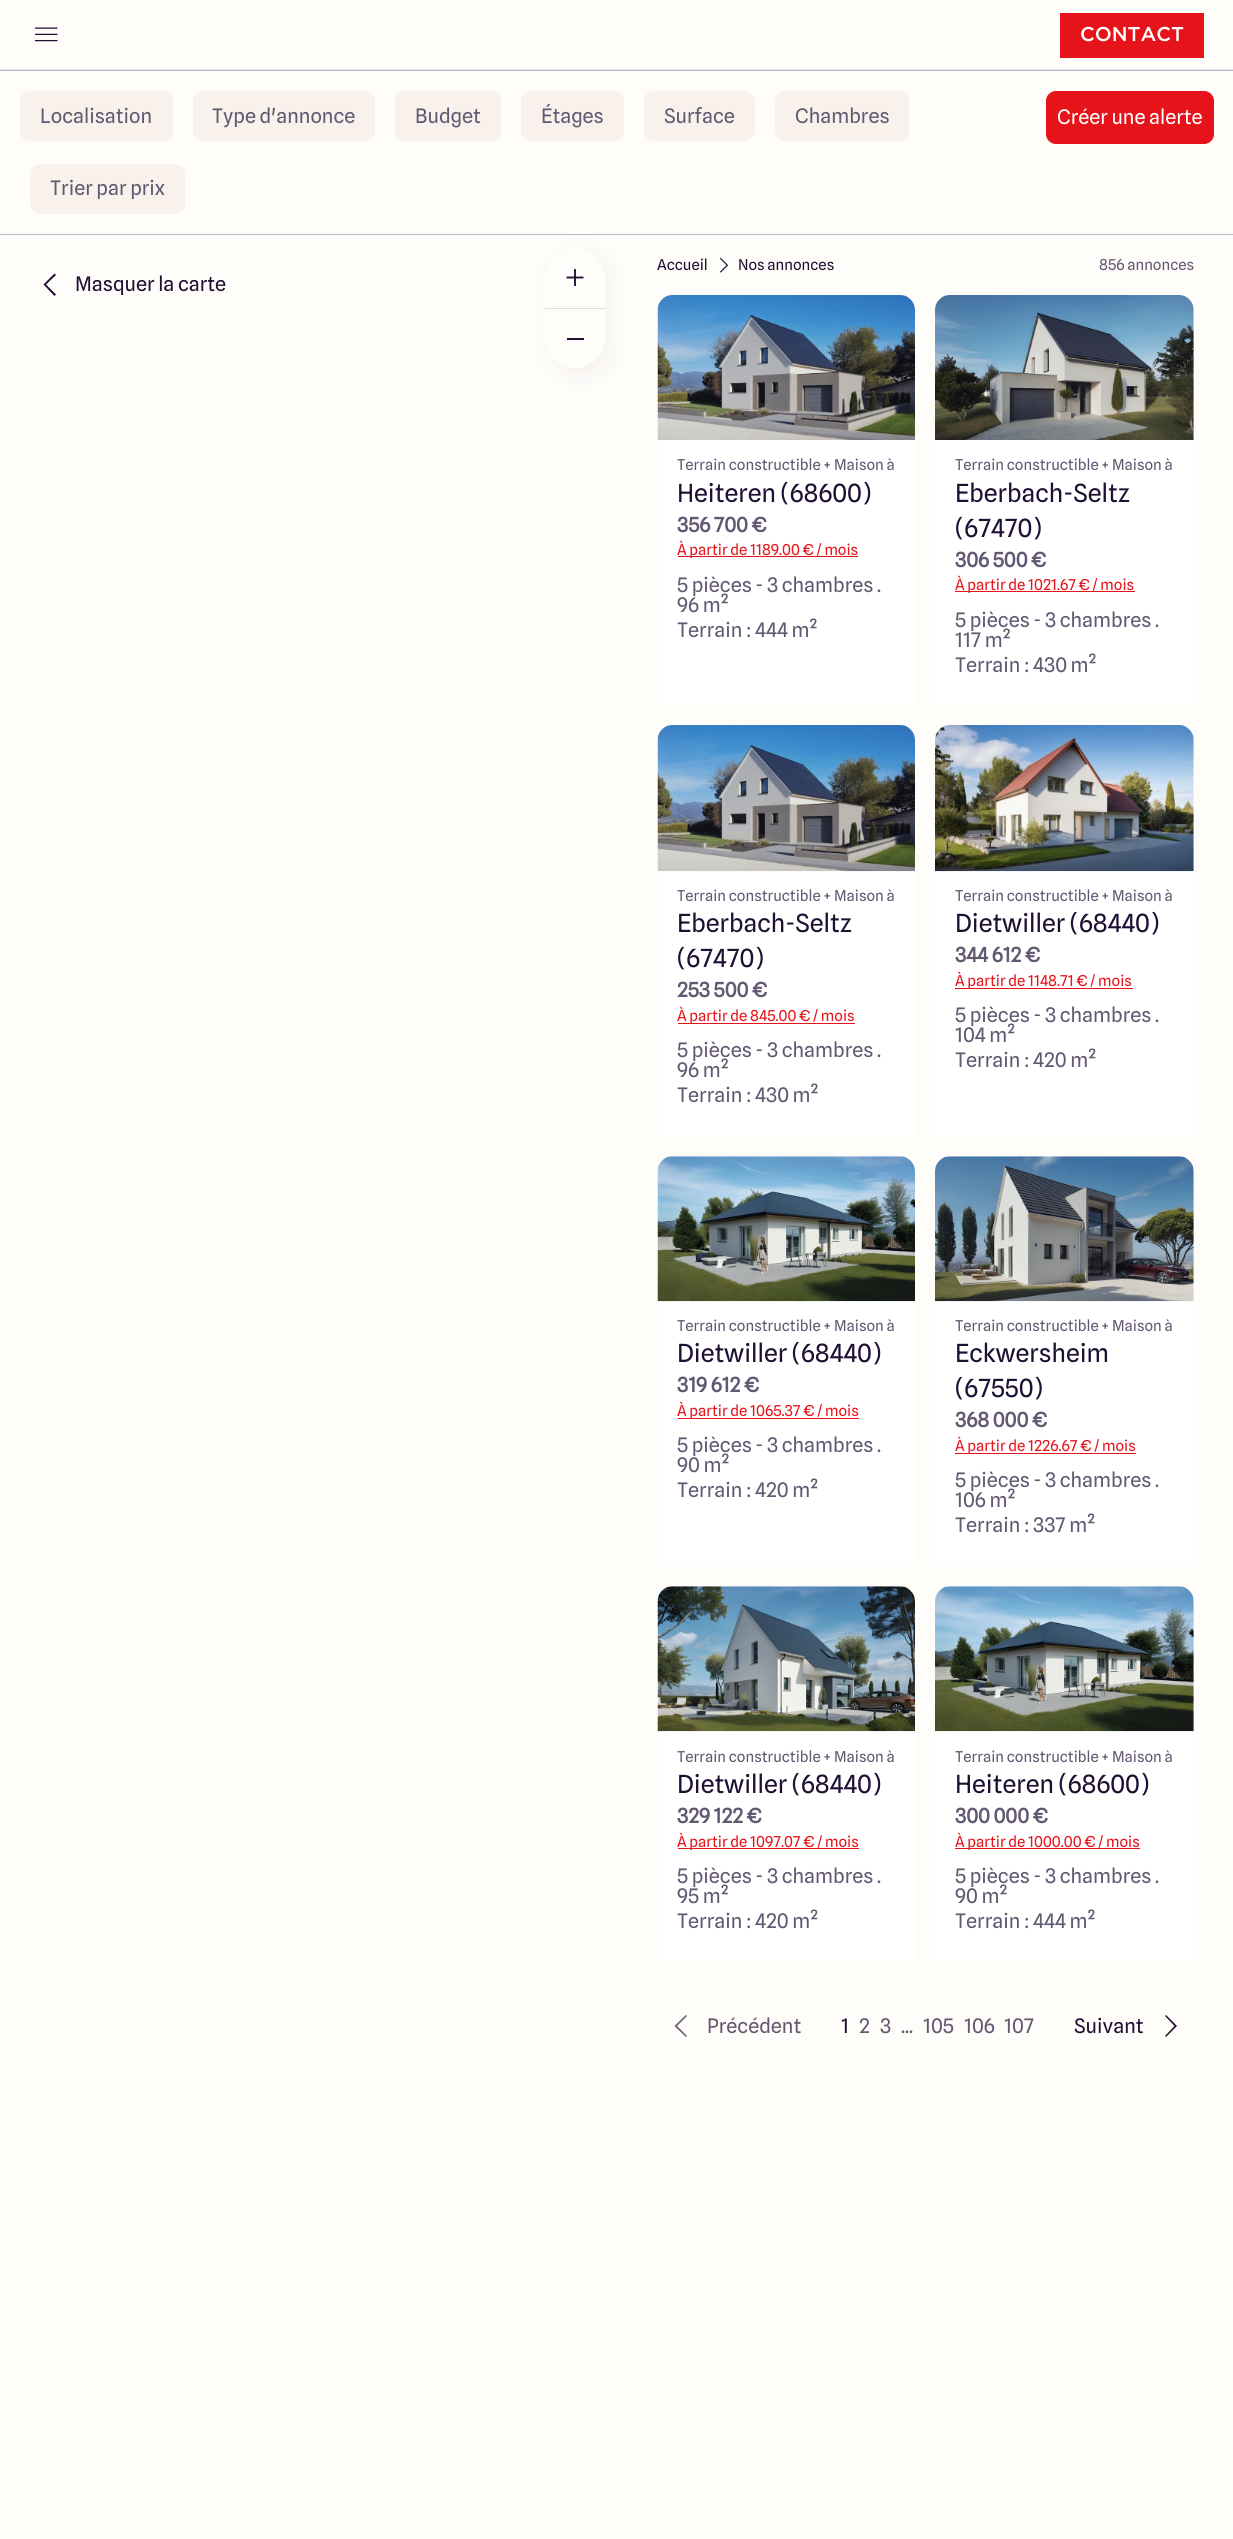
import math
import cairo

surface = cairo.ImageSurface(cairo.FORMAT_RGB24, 1233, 2539)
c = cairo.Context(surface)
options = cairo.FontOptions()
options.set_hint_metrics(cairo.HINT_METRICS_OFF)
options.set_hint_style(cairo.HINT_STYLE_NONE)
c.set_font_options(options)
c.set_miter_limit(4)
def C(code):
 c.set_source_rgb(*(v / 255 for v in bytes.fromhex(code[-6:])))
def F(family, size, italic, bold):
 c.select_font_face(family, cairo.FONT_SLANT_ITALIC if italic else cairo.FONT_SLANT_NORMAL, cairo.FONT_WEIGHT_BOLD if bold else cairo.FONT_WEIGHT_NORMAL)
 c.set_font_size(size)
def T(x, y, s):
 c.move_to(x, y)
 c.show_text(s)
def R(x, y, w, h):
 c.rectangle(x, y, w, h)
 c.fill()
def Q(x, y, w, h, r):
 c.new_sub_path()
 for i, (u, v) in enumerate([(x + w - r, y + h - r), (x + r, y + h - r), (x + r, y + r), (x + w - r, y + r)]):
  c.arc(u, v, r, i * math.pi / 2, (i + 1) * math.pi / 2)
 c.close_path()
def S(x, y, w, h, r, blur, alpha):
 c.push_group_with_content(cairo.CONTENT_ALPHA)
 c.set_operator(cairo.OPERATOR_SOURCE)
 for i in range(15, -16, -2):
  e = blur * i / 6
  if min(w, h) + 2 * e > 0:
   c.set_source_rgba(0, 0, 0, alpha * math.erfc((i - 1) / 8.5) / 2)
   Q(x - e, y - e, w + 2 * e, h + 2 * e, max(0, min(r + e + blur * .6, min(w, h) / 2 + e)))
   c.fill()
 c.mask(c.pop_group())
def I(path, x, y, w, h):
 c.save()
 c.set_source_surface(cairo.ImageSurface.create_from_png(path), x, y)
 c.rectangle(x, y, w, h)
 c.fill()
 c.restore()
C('fffdfa')
c.paint()
C('e5e5e5')
R(0,69,1233,1)
I('1.png',34,27,24,15)
C('e7131a')
R(1060,13,144,45)
F('Gotham Medium',20,0,0)
C('ffffff')
T(1080,41,'CONTACT')
C('bab7c7')
R(0,70,1233,1)
C('1e1033')
S(551,254,60,120,30,10.5,.05)
C('bab7c7')
R(0,234,1233,1)
C('f9f2ec')
Q(20,91,153,50,10)
c.fill()
F('Spline Sans',20,0,0)
C('625871')
T(40,123,'Localisation')
C('f9f2ec')
Q(193,91,182,50,10)
c.fill()
C('625871')
T(212,123,'Type d\'annonce')
C('f9f2ec')
Q(395,91,106,50,10)
c.fill()
C('625871')
T(415,123,'Budget')
C('f9f2ec')
Q(521,91,103,50,10)
c.fill()
C('625871')
T(541,123,'Étages')
C('f9f2ec')
Q(644,91,111,50,10)
c.fill()
C('625871')
T(664,123,'Surface')
C('f9f2ec')
Q(775,91,134,50,10)
c.fill()
C('625871')
T(795,123,'Chambres')
C('e7131a')
Q(1046.5,91.5,167,52,9.5)
c.fill_preserve()
c.set_line_width(1)
c.stroke()
C('ffffff')
T(1057,124,'Créer une alerte')
C('f9f2ec')
Q(30,164,155,50,10)
c.fill()
C('625871')
T(50,195,'Trier par prix')
C('1e1033')
c.new_path()
c.move_to(54.5,296)
c.line_to(43.5,284.5)
c.line_to(54.5,273.5)
c.line_to(56,275)
c.line_to(46,284.5)
c.line_to(56,294.5)
c.close_path()
c.fill()
T(75,291,'Masquer la carte')
C('fffdfa')
Q(545,248,60,120,30)
c.fill()
I('2.png',566,269,18,17)
C('dddddd')
R(545,308,60,1)
C('1e1033')
R(567,338,17,2)
F('Spline Sans',15,0,0)
T(657,270,'Accueil')
I('3.png',720,257,9,16)
T(738,270,'Nos annonces')
C('625871')
T(1099,270,'856 annonces')
C('ffffff')
c.new_path()
c.move_to(673,295)
c.line_to(900,295)
c.curve_to(908.5,295,915,301.5,915,310)
c.line_to(915,705)
c.line_to(658,705)
c.line_to(658,310)
c.curve_to(658,301.5,664.5,295,673,295)
c.close_path()
c.fill()
I('4.png',657,295,258,145)
C('625871')
T(677,470,'Terrain constructible + Maison à')
F('Spline Sans',25,0,0)
C('1e1033')
T(677,502,'Heiteren (68600)')
F('Spline Sans',20,0,1)
C('625871')
T(677,532,'356 700 €')
C('e7131a')
R(678,556,180,1)
F('Spline Sans',15,0,0)
T(677,555,'À partir de 1189.00 € / mois')
F('Spline Sans',20,0,0)
C('625871')
T(677,592,'5 pièces - 3 chambres .')
T(677,612,'96 m²')
T(677,637,'Terrain : 444 m²')
C('ffffff')
c.new_path()
c.move_to(950,295)
c.line_to(1179,295)
c.curve_to(1187.5,295,1194,301.5,1194,310)
c.line_to(1194,705)
c.line_to(935,705)
c.line_to(935,310)
c.curve_to(935,301.5,941.5,295,950,295)
c.close_path()
c.fill()
I('5.png',935,295,259,145)
F('Spline Sans',15,0,0)
C('625871')
T(955,470,'Terrain constructible + Maison à')
F('Spline Sans',25,0,0)
C('1e1033')
T(955,502,'Eberbach-Seltz')
T(955,537,'(67470)')
F('Spline Sans',20,0,1)
C('625871')
T(955,567,'306 500 €')
C('e7131a')
R(955,591,180,1)
F('Spline Sans',15,0,0)
T(955,590,'À partir de 1021.67 € / mois')
F('Spline Sans',20,0,0)
C('625871')
T(955,627,'5 pièces - 3 chambres .')
T(955,647,'117 m²')
T(955,672,'Terrain : 430 m²')
C('ffffff')
c.new_path()
c.move_to(673,725)
c.line_to(900,725)
c.curve_to(908.5,725,915,731.5,915,740)
c.line_to(915,1136)
c.line_to(658,1136)
c.line_to(658,740)
c.curve_to(658,731.5,664.5,725,673,725)
c.close_path()
c.fill()
I('6.png',657,725,258,147)
F('Spline Sans',15,0,0)
C('625871')
T(677,901,'Terrain constructible + Maison à')
F('Spline Sans',25,0,0)
C('1e1033')
T(677,932,'Eberbach-Seltz')
T(677,967,'(67470)')
F('Spline Sans',20,0,1)
C('625871')
T(677,997,'253 500 €')
C('e7131a')
R(678,1023,177,1)
F('Spline Sans',15,0,0)
T(677,1021,'À partir de 845.00 € / mois')
F('Spline Sans',20,0,0)
C('625871')
T(677,1057,'5 pièces - 3 chambres .')
T(677,1077,'96 m²')
T(677,1102,'Terrain : 430 m²')
C('ffffff')
c.new_path()
c.move_to(950,725)
c.line_to(1179,725)
c.curve_to(1187.5,725,1194,731.5,1194,740)
c.line_to(1194,1136)
c.line_to(935,1136)
c.line_to(935,740)
c.curve_to(935,731.5,941.5,725,950,725)
c.close_path()
c.fill()
I('7.png',935,725,259,147)
F('Spline Sans',15,0,0)
C('625871')
T(955,901,'Terrain constructible + Maison à')
F('Spline Sans',25,0,0)
C('1e1033')
T(955,932,'Dietwiller (68440)')
F('Spline Sans',20,0,1)
C('625871')
T(955,962,'344 612 €')
C('e7131a')
R(955,988,178,1)
F('Spline Sans',15,0,0)
T(955,986,'À partir de 1148.71 € / mois')
F('Spline Sans',20,0,0)
C('625871')
T(955,1022,'5 pièces - 3 chambres .')
T(955,1042,'104 m²')
T(955,1067,'Terrain : 420 m²')
C('ffffff')
c.new_path()
c.move_to(673,1156)
c.line_to(900,1156)
c.curve_to(908.5,1156,915,1162.5,915,1171)
c.line_to(915,1566)
c.line_to(658,1566)
c.line_to(658,1171)
c.curve_to(658,1162.5,664.5,1156,673,1156)
c.close_path()
c.fill()
I('8.png',657,1156,258,146)
F('Spline Sans',15,0,0)
C('625871')
T(677,1331,'Terrain constructible + Maison à')
F('Spline Sans',25,0,0)
C('1e1033')
T(677,1362,'Dietwiller (68440)')
F('Spline Sans',20,0,1)
C('625871')
T(677,1392,'319 612 €')
C('e7131a')
R(678,1418,122,1)
F('Spline Sans',15,0,0)
T(677,1416,'À partir de 1065.37 € / mois')
R(800,1418,59,1)
F('Spline Sans',20,0,0)
C('625871')
T(677,1452,'5 pièces - 3 chambres .')
T(677,1472,'90 m²')
T(677,1497,'Terrain : 420 m²')
C('ffffff')
c.new_path()
c.move_to(950,1156)
c.line_to(1179,1156)
c.curve_to(1187.5,1156,1194,1162.5,1194,1171)
c.line_to(1194,1566)
c.line_to(935,1566)
c.line_to(935,1171)
c.curve_to(935,1162.5,941.5,1156,950,1156)
c.close_path()
c.fill()
I('9.png',935,1156,259,146)
F('Spline Sans',15,0,0)
C('625871')
T(955,1331,'Terrain constructible + Maison à')
F('Spline Sans',25,0,0)
C('1e1033')
T(955,1362,'Eckwersheim')
T(955,1397,'(67550)')
F('Spline Sans',20,0,1)
C('625871')
T(955,1427,'368 000 €')
C('e7131a')
R(955,1453,181,1)
F('Spline Sans',15,0,0)
T(955,1451,'À partir de 1226.67 € / mois')
F('Spline Sans',20,0,0)
C('625871')
T(955,1487,'5 pièces - 3 chambres .')
T(955,1507,'106 m²')
T(955,1532,'Terrain : 337 m²')
C('ffffff')
c.new_path()
c.move_to(673,1586)
c.line_to(900,1586)
c.curve_to(908.5,1586,915,1592.5,915,1601)
c.line_to(915,1961)
c.line_to(658,1961)
c.line_to(658,1601)
c.curve_to(658,1592.5,664.5,1586,673,1586)
c.close_path()
c.fill()
I('10.png',657,1586,258,146)
F('Spline Sans',15,0,0)
C('625871')
T(677,1762,'Terrain constructible + Maison à')
F('Spline Sans',25,0,0)
C('1e1033')
T(677,1793,'Dietwiller (68440)')
F('Spline Sans',20,0,1)
C('625871')
T(677,1823,'329 122 €')
C('e7131a')
R(678,1848,122,1)
F('Spline Sans',15,0,0)
T(677,1847,'À partir de 1097.07 € / mois')
R(800,1848,59,1)
F('Spline Sans',20,0,0)
C('625871')
T(677,1883,'5 pièces - 3 chambres .')
T(677,1903,'95 m²')
T(677,1928,'Terrain : 420 m²')
C('ffffff')
c.new_path()
c.move_to(950,1586)
c.line_to(1179,1586)
c.curve_to(1187.5,1586,1194,1592.5,1194,1601)
c.line_to(1194,1961)
c.line_to(935,1961)
c.line_to(935,1601)
c.curve_to(935,1592.5,941.5,1586,950,1586)
c.close_path()
c.fill()
I('11.png',935,1586,259,146)
F('Spline Sans',15,0,0)
C('625871')
T(955,1762,'Terrain constructible + Maison à')
F('Spline Sans',25,0,0)
C('1e1033')
T(955,1793,'Heiteren (68600)')
F('Spline Sans',20,0,1)
C('625871')
T(955,1823,'300 000 €')
C('e7131a')
R(955,1848,126,1)
F('Spline Sans',15,0,0)
T(955,1847,'À partir de 1000.00 € / mois')
R(1081,1848,59,1)
F('Spline Sans',20,0,0)
C('625871')
T(955,1883,'5 pièces - 3 chambres .')
T(955,1903,'90 m²')
T(955,1928,'Terrain : 444 m²')
c.new_path()
c.move_to(686,2037)
c.line_to(674.5,2026)
c.line_to(686,2015)
c.line_to(687,2016)
c.line_to(677,2026)
c.line_to(687,2036)
c.close_path()
c.fill()
T(707,2033,'Précédent')
C('1e1033')
T(841,2033,'1')
C('625871')
T(859,2033,'2')
T(880,2033,'3')
T(901,2033,'...')
T(923,2033,'105')
T(964,2033,'106')
T(1004,2033,'107')
C('1e1033')
T(1074,2033,'Suivant')
c.new_path()
c.move_to(1166,2037)
c.line_to(1165,2036)
c.line_to(1174.5,2026)
c.line_to(1165,2016)
c.line_to(1166,2015)
c.line_to(1177,2026)
c.close_path()
c.fill()
surface.write_to_png('o.png')
